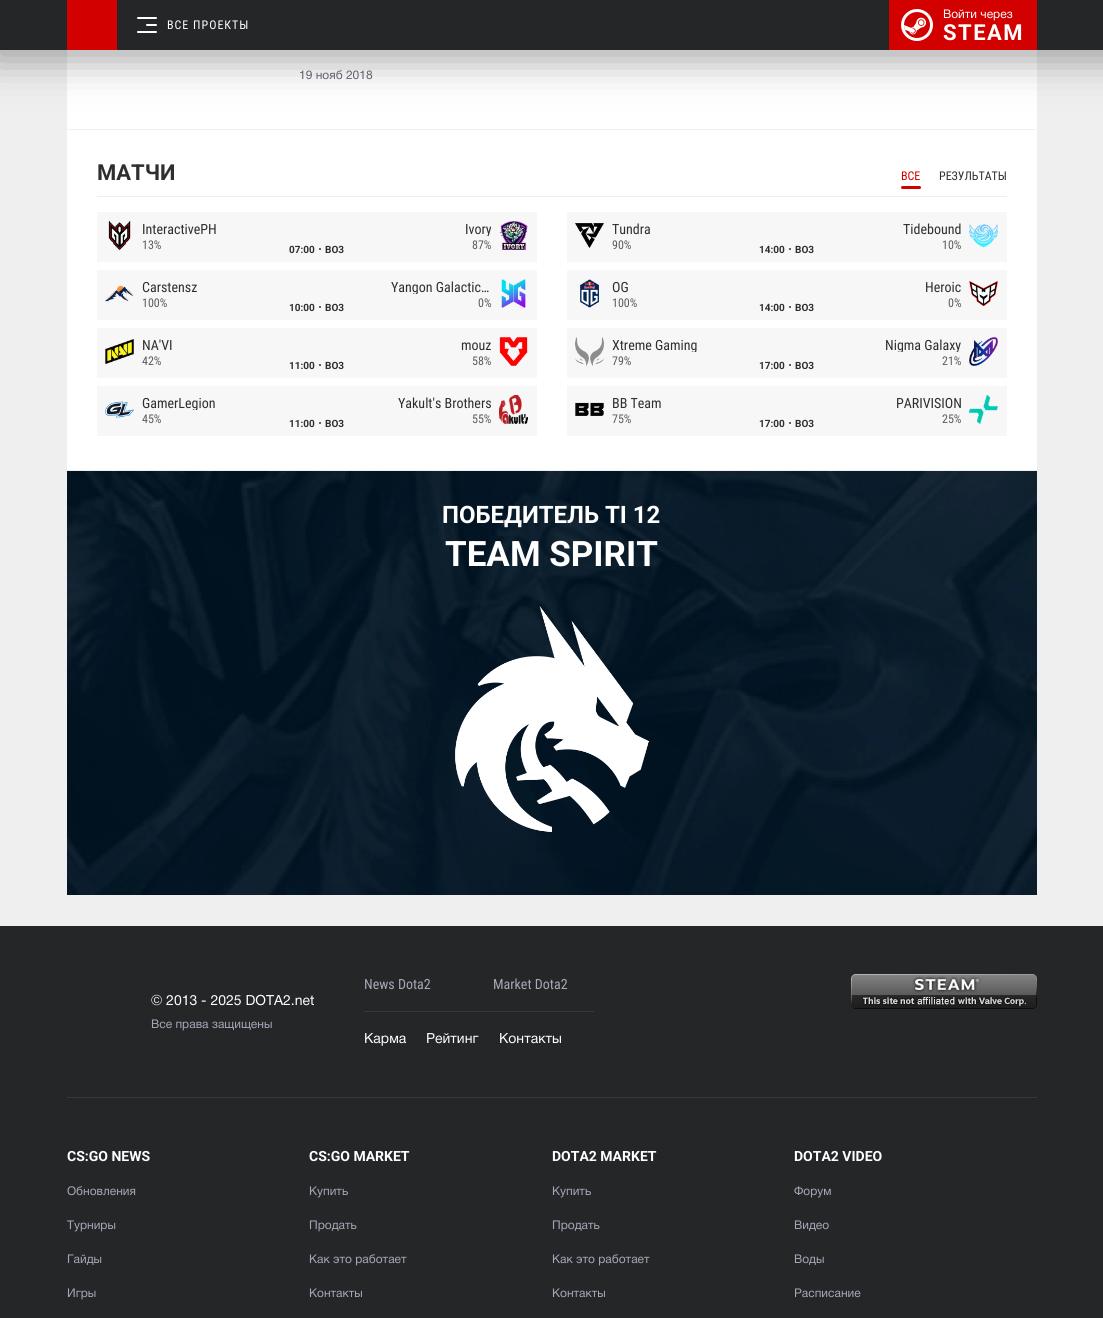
import math
import cairo

surface = cairo.ImageSurface(cairo.FORMAT_RGB24, 1103, 1318)
c = cairo.Context(surface)
options = cairo.FontOptions()
options.set_hint_metrics(cairo.HINT_METRICS_OFF)
options.set_hint_style(cairo.HINT_STYLE_NONE)
c.set_font_options(options)
c.set_miter_limit(4)
def C(code):
 c.set_source_rgb(*(v / 255 for v in bytes.fromhex(code[-6:])))
def F(family, size, italic, bold):
 c.select_font_face(family, cairo.FONT_SLANT_ITALIC if italic else cairo.FONT_SLANT_NORMAL, cairo.FONT_WEIGHT_BOLD if bold else cairo.FONT_WEIGHT_NORMAL)
 c.set_font_size(size)
def T(x, y, s):
 c.move_to(x, y)
 c.show_text(s)
def L(x, y, s, letter, word):
 c.move_to(x, y)
 for ch in s:
  c.show_text(ch)
  c.rel_move_to(letter + word * (ch == ' '), 0)
def R(x, y, w, h):
 c.rectangle(x, y, w, h)
 c.fill()
def Q(x, y, w, h, r):
 c.new_sub_path()
 for i, (u, v) in enumerate([(x + w - r, y + h - r), (x + r, y + h - r), (x + r, y + r), (x + w - r, y + r)]):
  c.arc(u, v, r, i * math.pi / 2, (i + 1) * math.pi / 2)
 c.close_path()
def S(x, y, w, h, r, blur, alpha):
 c.push_group_with_content(cairo.CONTENT_ALPHA)
 c.set_operator(cairo.OPERATOR_SOURCE)
 for i in range(15, -16, -2):
  e = blur * i / 6
  if min(w, h) + 2 * e > 0:
   c.set_source_rgba(0, 0, 0, alpha * math.erfc((i - 1) / 8.5) / 2)
   Q(x - e, y - e, w + 2 * e, h + 2 * e, max(0, min(r + e + blur * .6, min(w, h) / 2 + e)))
   c.fill()
 c.mask(c.pop_group())
def I(path, x, y, w, h):
 c.save()
 c.set_source_surface(cairo.ImageSurface.create_from_png(path), x, y)
 c.rectangle(x, y, w, h)
 c.fill()
 c.restore()
C('efefef')
c.paint()
C('ffffff')
R(67,50,970,420)
C('1e1e1e')
S(-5,-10,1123,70,0,20,.4)
C('242628')
R(0,0,1103,50)
C('d30000')
R(67,0,50,50)
C('ffffff')
Q(146,24,11,2,1)
c.fill()
Q(137,17,20,2,1)
c.fill()
Q(137,31,20,2,1)
c.fill()
F('Roboto Condensed',12,0,0)
L(167,29,'ВСЕ ПРОЕКТЫ',1,0)
C('d30000')
R(889,0,148,50)
I('1.png',901,9,32,32)
F('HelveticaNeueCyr',12,0,0)
C('ffffff')
T(943,18,'Войти через')
F('Roboto',22,0,1)
L(943,40,'STEAM',1.5,0)
F('HelveticaNeueCyr',12,0,0)
C('616170')
T(299,79,'19 нояб 2018')
C('f0f0f0')
R(67,129,969,1)
C('efefef')
R(97,196,910,1)
F('Roboto',22,0,1)
C('2e2f30')
T(97,180,'МАТЧИ')
F('Roboto Condensed',12,0,0)
C('d30000')
T(901,180,'ВСЕ')
Q(901,186,20,3,1.5)
c.fill()
C('2e2f30')
T(939,180,'РЕЗУЛЬТАТЫ')
C('f7f7f7')
R(97,212,440,50)
I('2.png',108,221,23,29)
F('Roboto Condensed',14,0,0)
C('2e2f30')
T(142,234,'InteractivePH')
F('Roboto Condensed',12,0,0)
C('585c60')
T(142,249,'13%')
F('Roboto',10,0,1)
C('2e2f30')
T(289,253,'07:00')
c.new_path()
c.arc(320,249,1,0,2 * math.pi)
c.fill()
T(325,253,'BO3')
c.save()
c.rectangle(391,222,100,14)
c.clip()
F('Roboto Condensed',14,0,0)
T(465,234,'Ivory')
c.restore()
F('Roboto Condensed',12,0,0)
C('585c60')
T(472,249,'87%')
I('3.png',499,221,29,29)
C('f7f7f7')
R(567,212,440,50)
I('4.png',575,223,29,25)
F('Roboto Condensed',14,0,0)
C('2e2f30')
T(612,234,'Tundra')
F('Roboto Condensed',12,0,0)
C('585c60')
T(612,249,'90%')
F('Roboto',10,0,1)
C('2e2f30')
T(759,253,'14:00')
c.new_path()
c.arc(790,249,1,0,2 * math.pi)
c.fill()
T(795,253,'BO3')
F('Roboto Condensed',14,0,0)
T(903,234,'Tidebound')
F('Roboto Condensed',12,0,0)
C('585c60')
T(942,249,'10%')
I('5.png',969,224,29,24)
C('f7f7f7')
R(97,270,440,50)
I('6.png',105,285,29,17)
F('Roboto Condensed',14,0,0)
C('2e2f30')
T(142,292,'Carstensz')
F('Roboto Condensed',12,0,0)
C('585c60')
T(142,307,'100%')
F('Roboto',10,0,1)
C('2e2f30')
T(289,311,'10:00')
c.new_path()
c.arc(320,307,1,0,2 * math.pi)
c.fill()
T(325,311,'BO3')
c.save()
c.rectangle(391,280,100,14)
c.clip()
F('Roboto Condensed',14,0,0)
T(391,292,'Yangon Galactic…')
c.restore()
F('Roboto Condensed',12,0,0)
C('585c60')
T(478,307,'0%')
I('7.png',501,279,25,29)
C('f7f7f7')
R(567,270,440,50)
I('8.png',580,279,19,29)
F('Roboto Condensed',14,0,0)
C('2e2f30')
T(612,292,'OG')
F('Roboto Condensed',12,0,0)
C('585c60')
T(612,307,'100%')
F('Roboto',10,0,1)
C('2e2f30')
T(759,311,'14:00')
c.new_path()
c.arc(790,307,1,0,2 * math.pi)
c.fill()
T(795,311,'BO3')
F('Roboto Condensed',14,0,0)
T(925,292,'Heroic')
F('Roboto Condensed',12,0,0)
C('585c60')
T(948,307,'0%')
I('9.png',969,281,29,25)
C('f7f7f7')
R(97,328,440,50)
I('10.png',105,339,29,25)
F('Roboto Condensed',14,0,0)
C('2e2f30')
T(142,350,'NA\'VI')
F('Roboto Condensed',12,0,0)
C('585c60')
T(142,365,'42%')
F('Roboto',10,0,1)
C('2e2f30')
T(289,369,'11:00')
c.new_path()
c.arc(320,365,1,0,2 * math.pi)
c.fill()
T(325,369,'BO3')
F('Roboto Condensed',14,0,0)
T(461,350,'mouz')
F('Roboto Condensed',12,0,0)
C('585c60')
T(472,365,'58%')
I('11.png',499,337,29,29)
C('f7f7f7')
R(567,328,440,50)
I('12.png',575,337,29,29)
c.save()
c.rectangle(612,338,100,14)
c.clip()
F('Roboto Condensed',14,0,0)
C('2e2f30')
T(612,350,'Xtreme Gaming')
c.restore()
C('585c60')
T(612,365,'79%')
F('Roboto',10,0,1)
C('2e2f30')
T(759,369,'17:00')
c.new_path()
c.arc(790,365,1,0,2 * math.pi)
c.fill()
T(795,369,'BO3')
c.save()
c.rectangle(861,338,100,14)
c.clip()
F('Roboto Condensed',14,0,0)
T(885,350,'Nigma Galaxy')
c.restore()
F('Roboto Condensed',12,0,0)
C('585c60')
T(942,365,'21%')
I('13.png',969,337,29,29)
C('f7f7f7')
R(97,386,440,50)
I('14.png',105,401,29,17)
c.save()
c.rectangle(142,396,100,14)
c.clip()
F('Roboto Condensed',14,0,0)
C('2e2f30')
T(142,408,'GamerLegion')
c.restore()
C('585c60')
T(142,423,'45%')
F('Roboto',10,0,1)
C('2e2f30')
T(289,427,'11:00')
c.new_path()
c.arc(320,423,1,0,2 * math.pi)
c.fill()
T(325,427,'BO3')
F('Roboto Condensed',14,0,0)
T(398,408,'Yakult\'s Brothers')
F('Roboto Condensed',12,0,0)
C('585c60')
T(472,423,'55%')
I('15.png',499,395,29,29)
C('f7f7f7')
R(567,386,440,50)
I('16.png',575,402,29,14)
F('Roboto Condensed',14,0,0)
C('2e2f30')
T(612,408,'BB Team')
F('Roboto Condensed',12,0,0)
C('585c60')
T(612,423,'75%')
F('Roboto',10,0,1)
C('2e2f30')
T(759,427,'17:00')
c.new_path()
c.arc(790,423,1,0,2 * math.pi)
c.fill()
T(795,427,'BO3')
F('Roboto Condensed',14,0,0)
T(896,408,'PARIVISION')
F('Roboto Condensed',12,0,0)
C('585c60')
T(942,423,'25%')
I('17.png',969,395,29,29)
I('18.png',67,471,970,424)
F('Roboto',24,0,1)
C('ffffff')
T(442,523,'ПОБЕДИТЕЛЬ TI 12')
F('Roboto',35,0,1)
T(445,566,'TEAM SPIRIT')
I('19.png',455,606,194,226)
C('242628')
R(0,926,1103,392)
F('HelveticaNeueCyr',14,0,0)
C('ffffff')
T(151,1005,'© 2013 - 2025 DOTA2.net')
F('HelveticaNeueCyr',12,0,0)
C('a4a9b7')
T(151,1028,'Все права защищены')
C('36393c')
R(364,1011,230,1)
F('Roboto Condensed',14,0,0)
C('a4a9b7')
T(364,989,'News Dota2')
T(493,989,'Market Dota2')
F('HelveticaNeueCyr',14,0,0)
C('ffffff')
T(364,1043,'Карма')
T(426,1043,'Рейтинг')
T(499,1043,'Контакты')
I('20.png',851,974,186,35)
C('36393c')
R(67,1097,970,1)
F('Roboto',14,0,1)
C('ffffff')
T(67,1161,'CS:GO NEWS')
F('HelveticaNeueCyr',12,0,0)
C('a4a9b7')
T(67,1195,'Обновления')
T(67,1229,'Турниры')
T(67,1263,'Гайды')
T(67,1297,'Игры')
F('Roboto',14,0,1)
C('ffffff')
T(309,1161,'CS:GO MARKET')
F('HelveticaNeueCyr',12,0,0)
C('a4a9b7')
T(309,1195,'Купить')
T(309,1229,'Продать')
T(309,1263,'Как это работает')
T(309,1297,'Контакты')
F('Roboto',14,0,1)
C('ffffff')
T(552,1161,'DOTA2 MARKET')
F('HelveticaNeueCyr',12,0,0)
C('a4a9b7')
T(552,1195,'Купить')
T(552,1229,'Продать')
T(552,1263,'Как это работает')
T(552,1297,'Контакты')
F('Roboto',14,0,1)
C('ffffff')
T(794,1161,'DOTA2 VIDEO')
F('HelveticaNeueCyr',12,0,0)
C('a4a9b7')
T(794,1195,'Форум')
T(794,1229,'Видео')
T(794,1263,'Воды')
T(794,1297,'Расписание')
surface.write_to_png('o.png')
